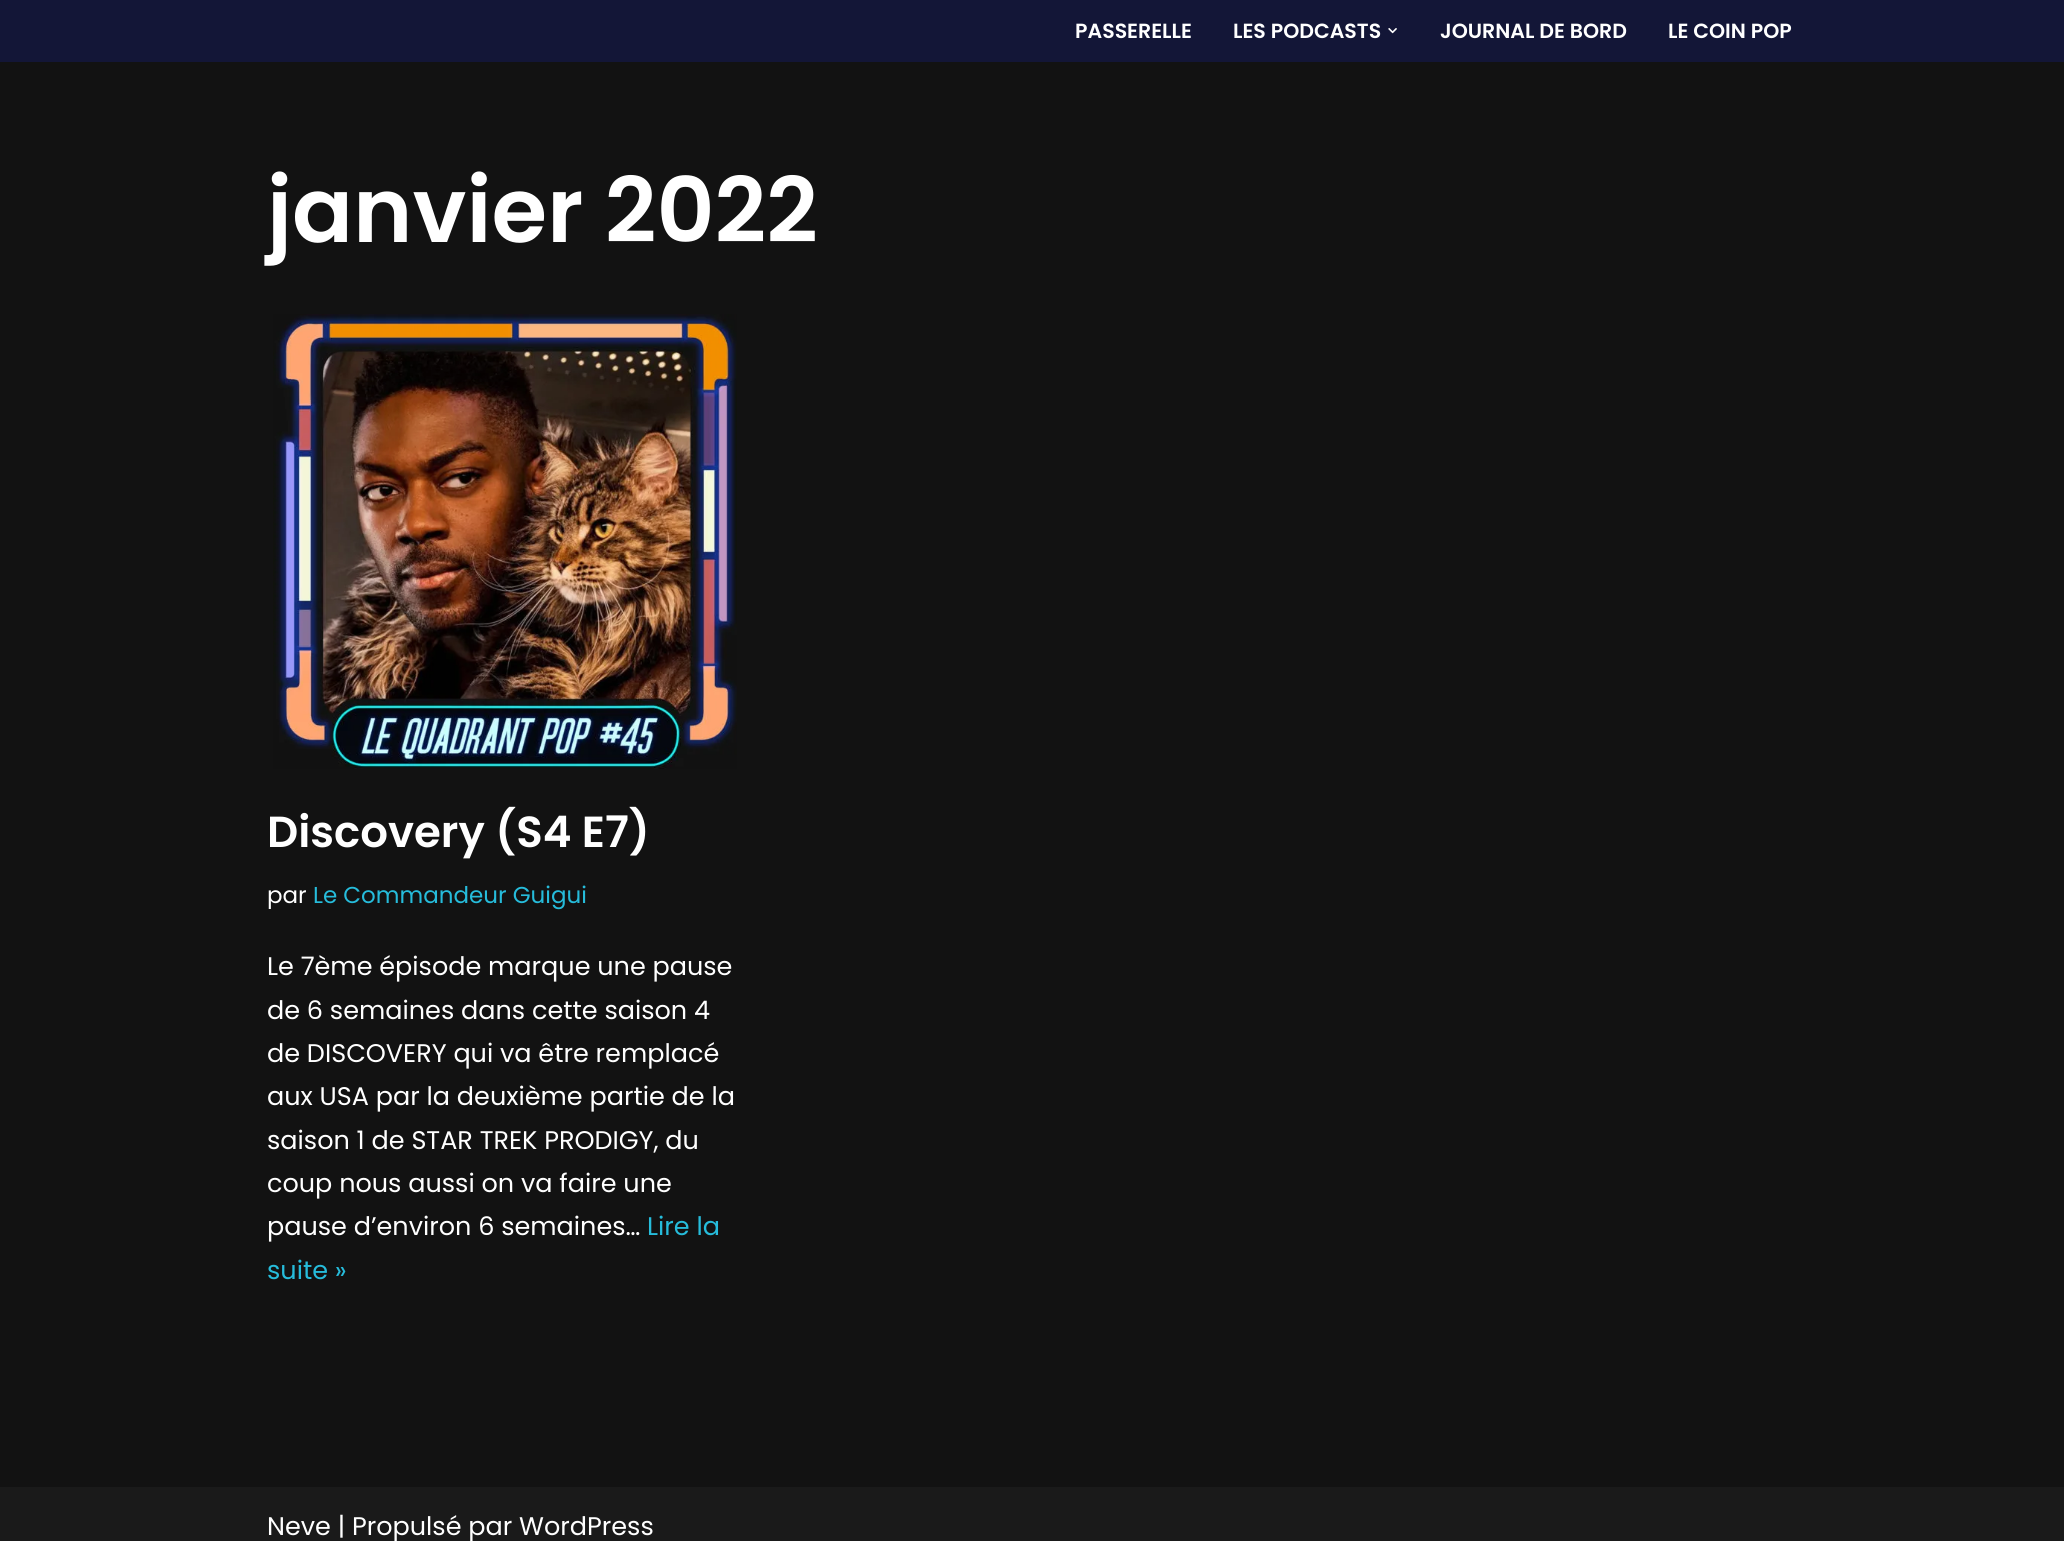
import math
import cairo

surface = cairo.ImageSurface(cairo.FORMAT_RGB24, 2064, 1541)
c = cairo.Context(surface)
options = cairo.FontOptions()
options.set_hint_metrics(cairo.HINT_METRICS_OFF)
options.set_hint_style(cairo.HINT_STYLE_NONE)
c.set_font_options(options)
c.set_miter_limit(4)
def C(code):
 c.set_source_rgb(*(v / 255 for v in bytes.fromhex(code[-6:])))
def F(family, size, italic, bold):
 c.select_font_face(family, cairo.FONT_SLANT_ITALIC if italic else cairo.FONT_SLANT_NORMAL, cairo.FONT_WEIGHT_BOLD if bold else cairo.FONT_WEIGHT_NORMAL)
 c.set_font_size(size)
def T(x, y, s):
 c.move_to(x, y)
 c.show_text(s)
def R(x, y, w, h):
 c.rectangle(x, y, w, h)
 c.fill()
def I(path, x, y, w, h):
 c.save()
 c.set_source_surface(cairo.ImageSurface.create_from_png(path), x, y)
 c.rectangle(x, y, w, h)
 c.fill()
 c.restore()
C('121212')
c.paint()
C('131637')
R(0,0,2064,62)
F('Poppins SemiBold',20.5,0,0)
C('ffffff')
T(1075,38,'PASSERELLE')
T(1233,38,'LES PODCASTS')
I('1.png',1388,28,9,6)
T(1440,38,'JOURNAL DE BORD')
T(1668,38,'LE COIN POP')
F('Poppins SemiBold',90,0,0)
T(267,242,'janvier 2022')
I('2.png',273,314,464,455)
F('Poppins SemiBold',43.5,0,0)
T(267,847,'Discovery (S4 E7)')
F('Poppins',23,0,0)
T(267,903,'par')
C('26bcdb')
T(313,903,'Le Commandeur Guigui')
F('Poppins',25.5,0,0)
C('ffffff')
T(267,975,'Le 7ème épisode marque une pause')
T(267,1019,'de 6 semaines dans cette saison 4')
T(267,1062,'de DISCOVERY qui va être remplacé')
T(267,1105,'aux USA par la deuxième partie de la')
T(267,1149,'saison 1 de STAR TREK PRODIGY, du')
T(267,1192,'coup nous aussi on va faire une')
T(267,1235,'pause d’environ 6 semaines…')
C('26bcdb')
T(647,1235,'Lire la')
T(267,1279,'suite »')
C('1a1a1a')
R(0,1487,2064,54)
C('ffffff')
T(267,1535,'Neve | Propulsé par WordPress')
surface.write_to_png('o.png')
